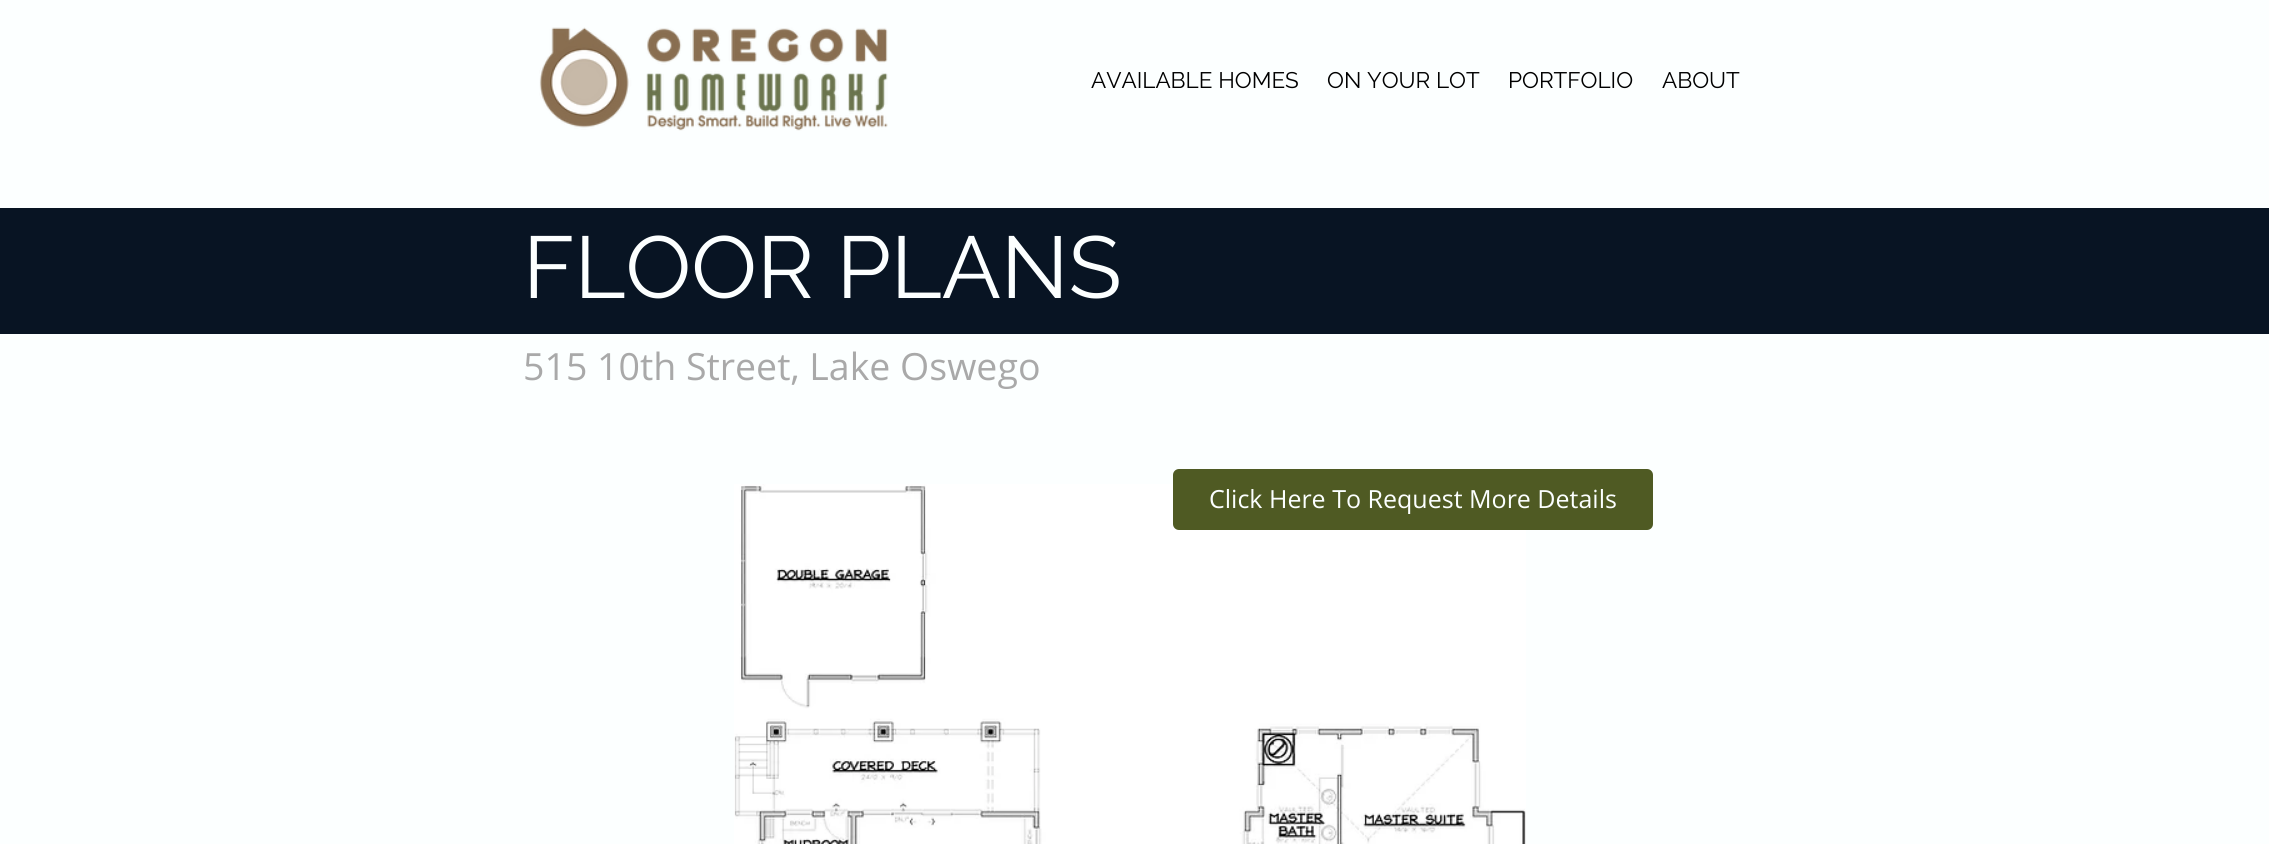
import math
import cairo

surface = cairo.ImageSurface(cairo.FORMAT_RGB24, 2269, 844)
c = cairo.Context(surface)
options = cairo.FontOptions()
options.set_hint_metrics(cairo.HINT_METRICS_OFF)
options.set_hint_style(cairo.HINT_STYLE_NONE)
c.set_font_options(options)
c.set_miter_limit(4)
def C(code):
 c.set_source_rgb(*(v / 255 for v in bytes.fromhex(code[-6:])))
def F(family, size, italic, bold):
 c.select_font_face(family, cairo.FONT_SLANT_ITALIC if italic else cairo.FONT_SLANT_NORMAL, cairo.FONT_WEIGHT_BOLD if bold else cairo.FONT_WEIGHT_NORMAL)
 c.set_font_size(size)
def T(x, y, s):
 c.move_to(x, y)
 c.show_text(s)
def R(x, y, w, h):
 c.rectangle(x, y, w, h)
 c.fill()
def Q(x, y, w, h, r):
 c.new_sub_path()
 for i, (u, v) in enumerate([(x + w - r, y + h - r), (x + r, y + h - r), (x + r, y + r), (x + w - r, y + r)]):
  c.arc(u, v, r, i * math.pi / 2, (i + 1) * math.pi / 2)
 c.close_path()
def I(path, x, y, w, h):
 c.save()
 c.set_source_surface(cairo.ImageSurface.create_from_png(path), x, y)
 c.rectangle(x, y, w, h)
 c.fill()
 c.restore()
C('fcffff')
c.paint()
I('1.png',539,27,349,104)
F('Raleway',22.5,0,0)
C('000000')
T(1091,88,'AVAILABLE HOMES')
T(1327,88,'ON YOUR LOT')
T(1508,88,'PORTFOLIO')
T(1662,88,'ABOUT')
C('081423')
R(0,208,2269,126)
F('Raleway',87.5,0,0)
C('fcffff')
T(523,298,'FLOOR PLANS')
F('Open Sans',37.5,0,0)
C('a9a9a9')
T(523,380,'515 10th Street, Lake Oswego')
I('2.png',734,484,792,360)
C('4f5a23')
Q(1173,469,480,61,6)
c.fill()
F('Open Sans',25,0,0)
C('fcffff')
T(1209,508,'Click Here To Request More Details')
surface.write_to_png('o.png')
